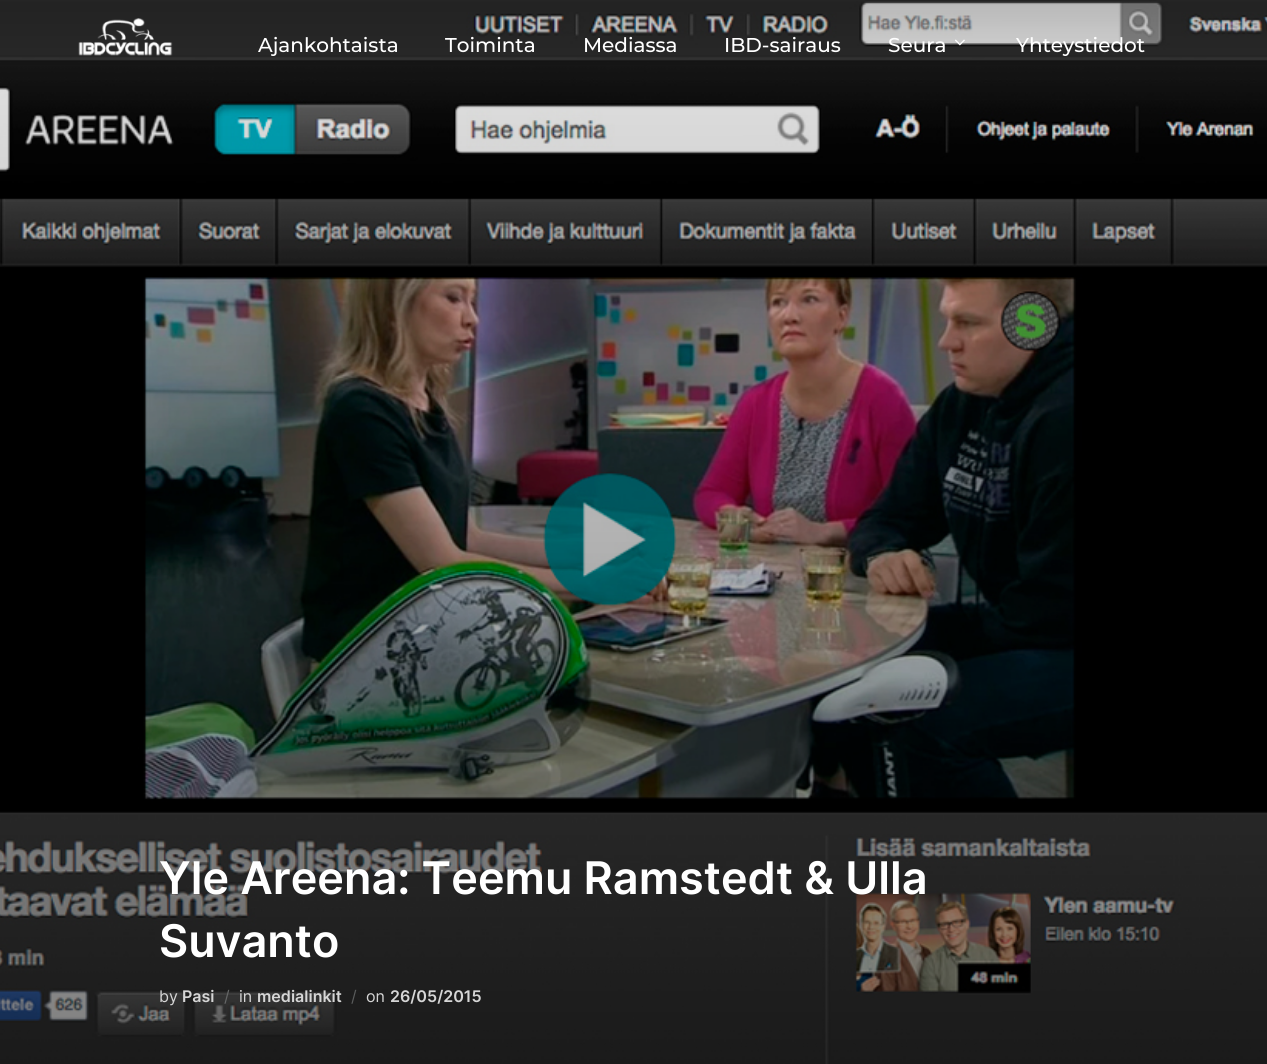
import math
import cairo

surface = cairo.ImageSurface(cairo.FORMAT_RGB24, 1267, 1064)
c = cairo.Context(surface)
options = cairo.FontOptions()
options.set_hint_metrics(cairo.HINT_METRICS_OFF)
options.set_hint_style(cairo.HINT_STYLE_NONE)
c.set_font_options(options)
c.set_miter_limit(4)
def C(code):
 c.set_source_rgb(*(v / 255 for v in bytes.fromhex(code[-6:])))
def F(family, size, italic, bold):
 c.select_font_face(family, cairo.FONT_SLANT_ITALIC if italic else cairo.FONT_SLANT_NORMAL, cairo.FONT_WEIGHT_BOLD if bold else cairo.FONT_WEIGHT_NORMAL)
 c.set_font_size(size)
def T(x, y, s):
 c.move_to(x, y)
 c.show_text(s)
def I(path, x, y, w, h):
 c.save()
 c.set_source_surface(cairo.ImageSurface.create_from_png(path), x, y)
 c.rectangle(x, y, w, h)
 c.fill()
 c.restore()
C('ffffff')
c.paint()
I('3.png',0,0,1267,1064)
I('1.png',78,18,95,38)
F('Montserrat Medium',20,0,0)
C('ffffff')
T(258,52,'Ajankohtaista')
T(445,52,'Toiminta')
T(583,52,'Mediassa')
T(724,52,'IBD-sairaus')
T(888,52,'Seura')
I('2.png',955,39,10,7)
T(1016,52,'Yhteystiedot')
F('Inter SemiBold',45,0,0)
T(159,894,'Yle Areena: Teemu Ramstedt & Ulla')
T(159,957,'Suvanto')
F('Inter',16,0,0)
C('d6d6d6')
T(159,1002,'by')
F('Inter SemiBold',16,0,0)
T(182,1002,'Pasi')
F('Inter',16,0,0)
C('656767')
T(224,1002,'/')
C('d6d6d6')
T(239,1002,'in')
F('Inter SemiBold',16,0,0)
T(257,1002,'medialinkit')
F('Inter',16,0,0)
C('5a5c5c')
T(351,1002,'/')
C('d6d6d6')
T(366,1002,'on')
F('Inter SemiBold',16,0,0)
T(390,1002,'26/05/2015')
surface.write_to_png('o.png')
